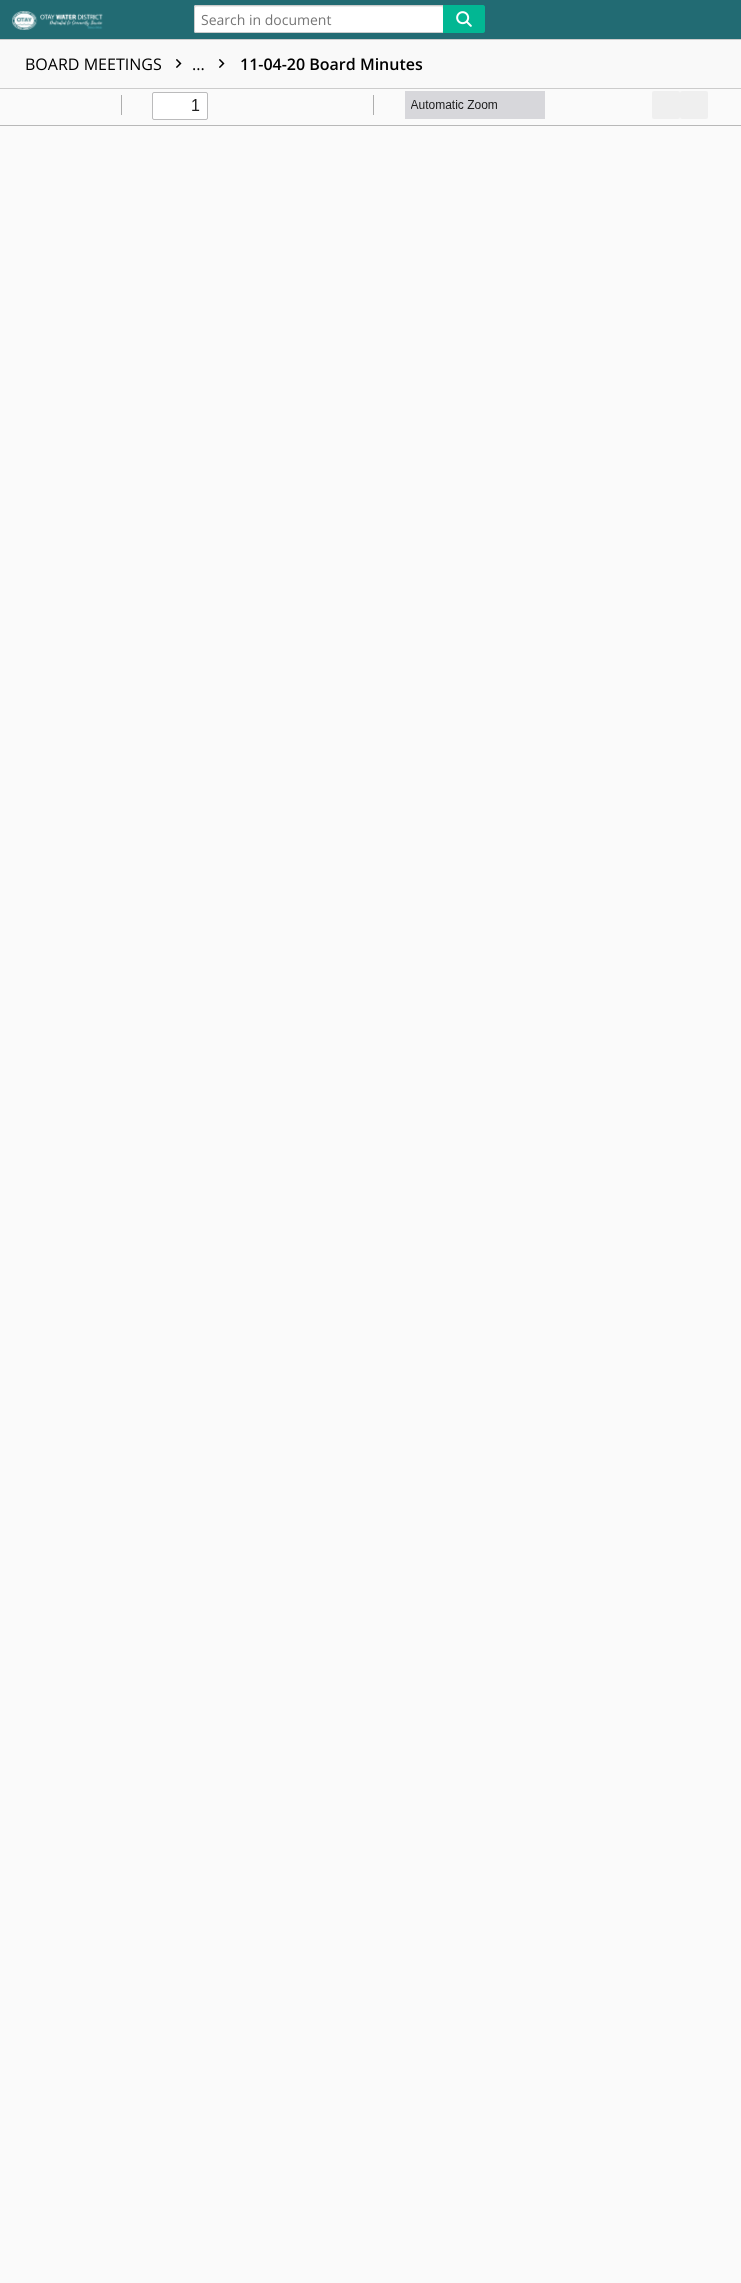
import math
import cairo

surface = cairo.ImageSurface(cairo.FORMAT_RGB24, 741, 2283)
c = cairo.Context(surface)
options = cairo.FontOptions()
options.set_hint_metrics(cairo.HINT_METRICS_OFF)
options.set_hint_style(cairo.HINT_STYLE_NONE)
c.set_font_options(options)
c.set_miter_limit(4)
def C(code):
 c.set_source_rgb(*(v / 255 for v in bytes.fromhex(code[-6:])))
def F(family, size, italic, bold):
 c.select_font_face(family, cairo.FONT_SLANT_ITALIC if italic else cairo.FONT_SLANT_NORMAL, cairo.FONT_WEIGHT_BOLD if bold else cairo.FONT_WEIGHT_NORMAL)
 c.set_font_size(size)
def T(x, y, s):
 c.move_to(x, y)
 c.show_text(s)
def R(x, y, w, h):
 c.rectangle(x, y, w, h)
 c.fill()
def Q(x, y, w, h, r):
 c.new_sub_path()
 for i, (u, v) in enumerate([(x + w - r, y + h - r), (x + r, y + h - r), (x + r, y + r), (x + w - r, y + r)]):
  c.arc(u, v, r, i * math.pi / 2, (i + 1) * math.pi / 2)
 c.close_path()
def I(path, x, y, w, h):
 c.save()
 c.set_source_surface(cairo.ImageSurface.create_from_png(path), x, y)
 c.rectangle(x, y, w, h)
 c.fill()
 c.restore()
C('f9f9f9')
c.paint()
C('226b73')
R(0,0,741,39)
C('cccccc')
R(0,39,741,1)
I('1.png',12,11,91,19)
C('ffffff')
Q(194,5,250,28,2)
c.fill()
C('ececec')
c.new_path()
c.move_to(196,7)
c.line_to(442,7)
c.line_to(443,9)
c.line_to(443,7)
c.curve_to(443,6,443,6,442,6)
c.line_to(196,6)
c.curve_to(195,6,195,6,195,7)
c.line_to(195,8)
c.close_path()
c.fill()
Q(194.5,5.5,249,27,1.5)
C('cccccc')
c.set_line_width(1)
c.stroke()
F('Open Sans',14,0,0)
C('757575')
T(201,25,'Search in document')
C('02b793')
c.new_path()
c.move_to(443,5)
c.line_to(483,5)
c.curve_to(484,5,485,6,485,7)
c.line_to(485,31)
c.curve_to(485,32,484,33,483,33)
c.line_to(443,33)
c.close_path()
c.fill()
I('2.png',456,11,16,16)
C('cccccc')
R(0,88,741,1)
F('Open Sans',16,0,0)
C('000000')
T(25,70,'BOARD MEETINGS')
I('3.png',176,59,6,9)
I('3.png',219,59,6,9)
T(192,70,'...')
F('Open Sans SemiBold',16,0,0)
T(240,70,'11-04-20 Board Minutes')
I('4.png',0,89,741,2194)
surface.write_to_png('o.png')
